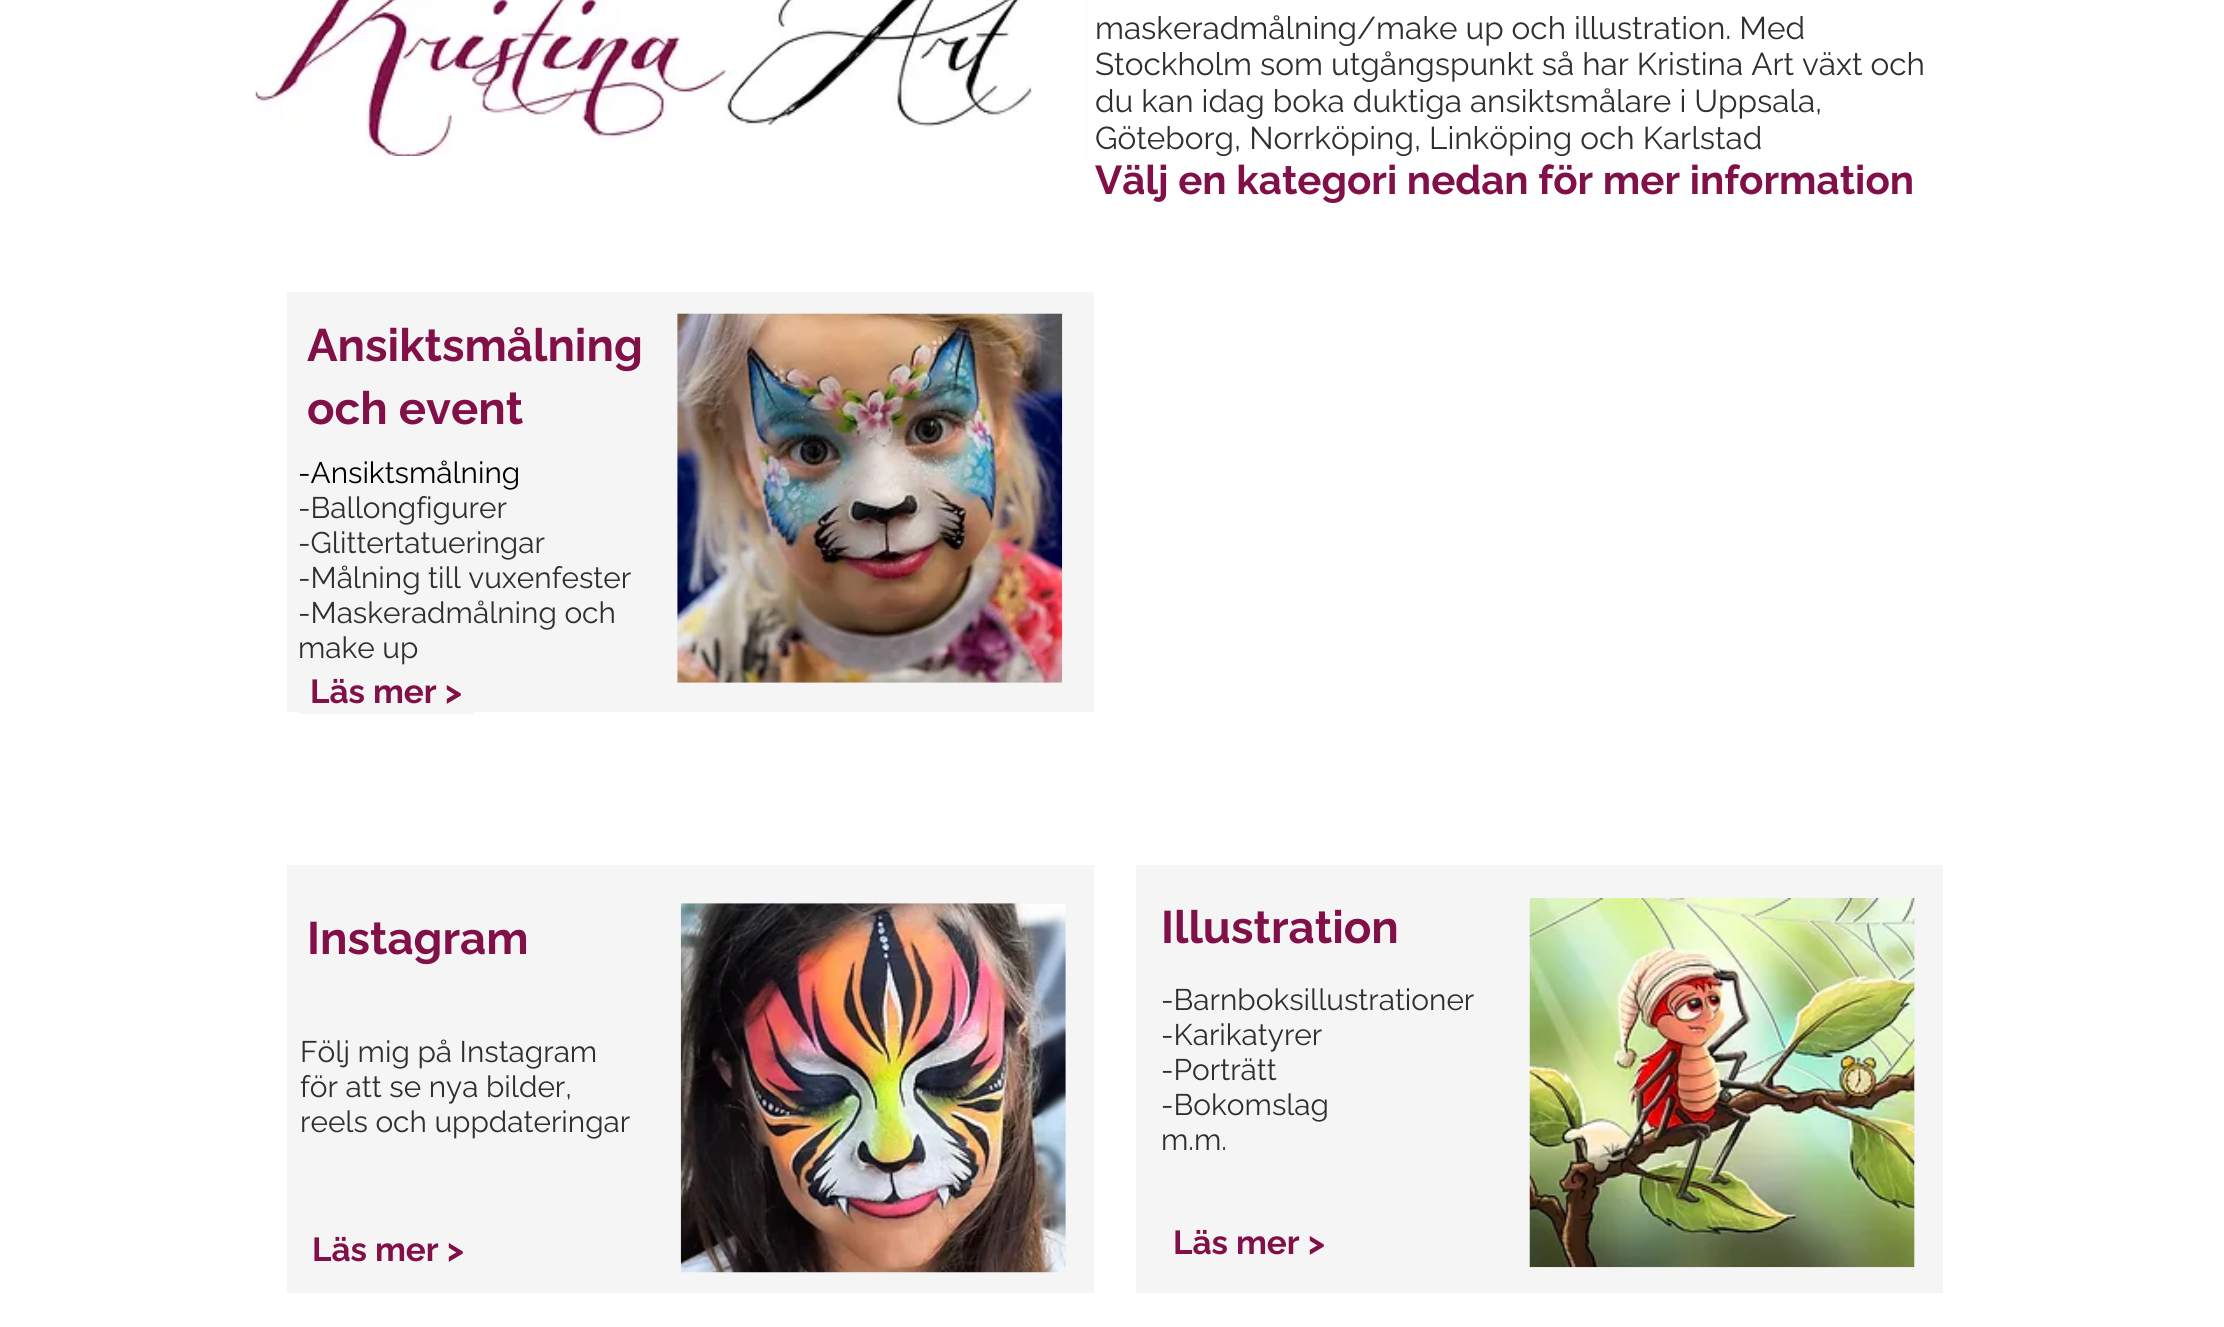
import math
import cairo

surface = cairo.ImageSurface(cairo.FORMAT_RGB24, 2224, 1327)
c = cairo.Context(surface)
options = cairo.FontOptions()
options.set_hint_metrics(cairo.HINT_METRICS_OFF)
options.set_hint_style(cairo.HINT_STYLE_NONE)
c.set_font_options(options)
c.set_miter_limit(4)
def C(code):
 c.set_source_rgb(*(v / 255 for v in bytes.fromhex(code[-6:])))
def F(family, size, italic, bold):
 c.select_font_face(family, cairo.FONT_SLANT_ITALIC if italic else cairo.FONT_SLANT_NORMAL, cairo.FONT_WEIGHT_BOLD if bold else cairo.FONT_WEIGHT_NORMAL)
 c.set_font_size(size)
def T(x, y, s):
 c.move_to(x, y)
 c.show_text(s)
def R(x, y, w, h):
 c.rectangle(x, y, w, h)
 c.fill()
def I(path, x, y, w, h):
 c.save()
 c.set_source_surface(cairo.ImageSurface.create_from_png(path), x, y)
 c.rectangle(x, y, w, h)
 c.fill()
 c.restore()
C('ffffff')
c.paint()
C('edeff0')
R(1086,0,1,156)
I('1.png',255,0,832,156)
F('Raleway',31.5,0,0)
C('2f2f2f')
T(1095,39,'maskeradmålning/make up och illustration. Med')
T(1095,75,'Stockholm som utgångspunkt så har Kristina Art växt och')
T(1095,112,'du kan idag boka duktiga ansiktsmålare i Uppsala,')
T(1095,149,'Göteborg, Norrköping, Linköping och Karlstad')
F('Raleway',40.25,0,1)
C('811048')
T(1095,194,'Välj en kategori nedan för mer information')
C('f5f5f5')
R(287,292,807,420)
F('Raleway',45.5,0,1)
C('811048')
T(307,361,'Ansiktsmålning')
T(307,424,'och event')
C('edeff0')
R(677,313,385,370)
I('2.png',677,313,386,370)
F('Raleway',29.75,0,0)
C('000000')
T(298,483,'-Ansiktsmålning')
C('2f2f2f')
T(298,518,'-Ballongfigurer')
T(298,553,'-Glittertatueringar')
T(298,588,'-Målning till vuxenfester')
T(298,623,'-Maskeradmålning och')
T(298,658,'make up')
C('f5f5f5')
R(299,712,175,2)
F('Raleway',33.25,0,1)
C('811048')
T(310,703,'Läs mer >')
C('f5f5f5')
R(287,865,807,428)
R(1136,865,807,428)
F('Raleway',45.5,0,1)
C('811048')
T(307,954,'Instagram')
C('edeff0')
R(681,903,385,369)
I('3.png',680,903,386,370)
C('811048')
T(1161,943,'Illustration')
C('edeff0')
R(1914,898,1,369)
I('4.png',1529,898,386,370)
F('Raleway',29.75,0,0)
C('2f2f2f')
T(300,1062,'Följ mig på Instagram')
T(300,1097,'för att se nya bilder,')
T(300,1132,'reels och uppdateringar')
T(1161,1010,'-Barnboksillustrationer')
T(1161,1045,'-Karikatyrer')
T(1161,1080,'-Porträtt')
T(1161,1115,'-Bokomslag')
T(1161,1150,'m.m.')
F('Raleway',33.25,0,1)
C('811048')
T(312,1261,'Läs mer >')
T(1173,1254,'Läs mer >')
surface.write_to_png('o.png')
